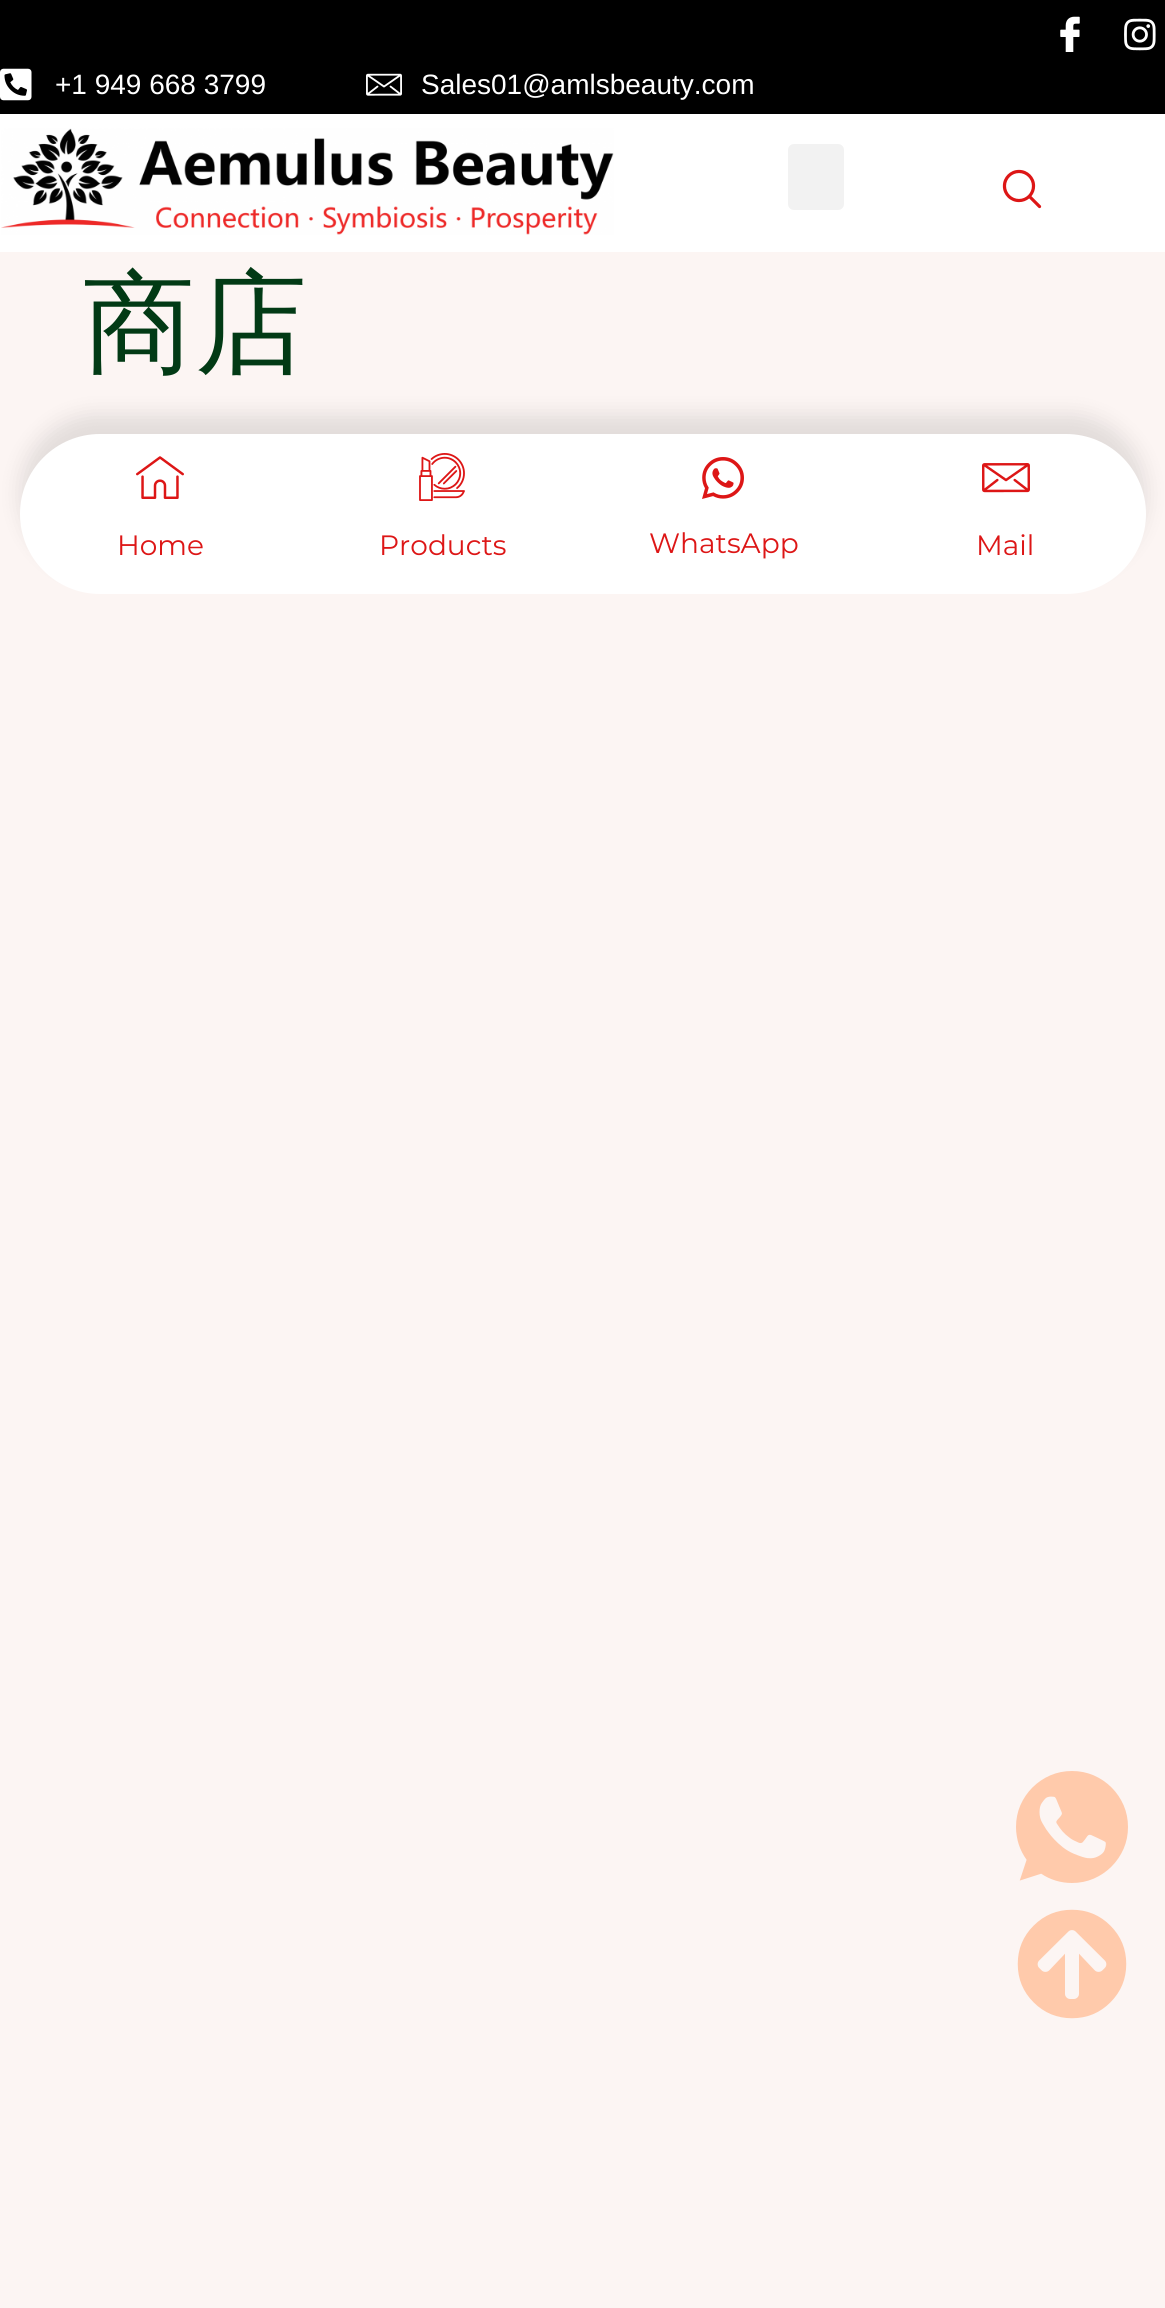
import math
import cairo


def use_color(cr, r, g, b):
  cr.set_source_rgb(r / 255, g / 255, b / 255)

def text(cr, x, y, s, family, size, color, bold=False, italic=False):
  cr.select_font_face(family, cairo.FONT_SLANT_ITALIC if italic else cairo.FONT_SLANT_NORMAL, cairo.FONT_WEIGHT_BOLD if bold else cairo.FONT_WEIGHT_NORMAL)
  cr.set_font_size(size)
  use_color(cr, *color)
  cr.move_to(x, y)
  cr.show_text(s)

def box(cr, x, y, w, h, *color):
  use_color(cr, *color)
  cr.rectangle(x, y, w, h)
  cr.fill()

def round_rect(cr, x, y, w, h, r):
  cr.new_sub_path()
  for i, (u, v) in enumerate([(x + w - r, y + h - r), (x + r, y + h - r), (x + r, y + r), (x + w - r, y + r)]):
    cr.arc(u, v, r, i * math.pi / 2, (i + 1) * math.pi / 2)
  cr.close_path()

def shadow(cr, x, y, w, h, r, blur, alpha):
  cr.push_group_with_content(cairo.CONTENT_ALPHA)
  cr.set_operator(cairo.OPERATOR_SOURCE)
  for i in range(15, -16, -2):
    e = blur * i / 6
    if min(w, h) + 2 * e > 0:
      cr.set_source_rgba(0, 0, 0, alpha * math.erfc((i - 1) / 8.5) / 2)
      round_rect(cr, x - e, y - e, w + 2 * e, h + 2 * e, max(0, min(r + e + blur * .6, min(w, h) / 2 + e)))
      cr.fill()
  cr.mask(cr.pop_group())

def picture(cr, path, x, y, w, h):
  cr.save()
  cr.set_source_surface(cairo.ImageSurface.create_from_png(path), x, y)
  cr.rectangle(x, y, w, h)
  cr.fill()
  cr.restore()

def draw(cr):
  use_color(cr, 252, 245, 243)
  cr.paint()
  box(cr, 0, 114, 1165, 138, 255, 255, 255)
  box(cr, 0, 0, 1165, 114, 0, 0, 0)
  picture(cr, "img_01.png", 1060, 16, 20, 36)
  picture(cr, "img_02.png", 1124, 18, 32, 33)
  picture(cr, "img_03.png", 0, 68, 32, 33)
  picture(cr, "img_04.png", 366, 73, 36, 23)
  picture(cr, "img_05.png", 1, 128, 613, 107)
  use_color(cr, 242, 242, 242)
  round_rect(cr, 788, 144, 56, 66, 6)
  cr.fill()
  picture(cr, "img_06.png", 1002, 169, 40, 40)
  use_color(cr, 0, 0, 0)
  shadow(cr, 20, 414, 1126, 160, 80, 10, 0.1)
  use_color(cr, 255, 255, 255)
  round_rect(cr, 20, 434, 1126, 160, 80)
  cr.fill()
  picture(cr, "img_07.png", 136, 456, 48, 43)
  picture(cr, "img_08.png", 419, 453, 46, 48)
  picture(cr, "img_09.png", 702, 457, 42, 42)
  picture(cr, "img_10.png", 982, 463, 48, 30)
  picture(cr, "img_11.png", 1016, 1771, 112, 112)
  picture(cr, "img_12.png", 1017, 1909, 110, 110)
  text(cr, 55, 94, "+1 949 668 3799", "Liberation Sans", 28, (255, 255, 255))
  text(cr, 421, 94, "Sales01@amlsbeauty.com", "Liberation Sans", 28, (255, 255, 255))
  text(cr, 83, 362, "商店", "WenQuanYi Zen Hei Medium", 112, (2, 58, 21))
  text(cr, 117, 555, "Home", "Montserrat", 28, (221, 22, 22))
  text(cr, 379, 555, "Products", "Montserrat", 28, (221, 22, 22))
  text(cr, 649, 553, "WhatsApp", "Montserrat", 28, (221, 22, 22))
  text(cr, 976, 555, "Mail", "Montserrat", 28, (221, 22, 22))


surface = cairo.ImageSurface(cairo.FORMAT_RGB24, 1165, 2308)
cr = cairo.Context(surface)
options = cairo.FontOptions()
options.set_hint_metrics(cairo.HINT_METRICS_OFF)
options.set_hint_style(cairo.HINT_STYLE_NONE)
cr.set_font_options(options)
cr.set_miter_limit(4)
draw(cr)
surface.write_to_png("out.png")
